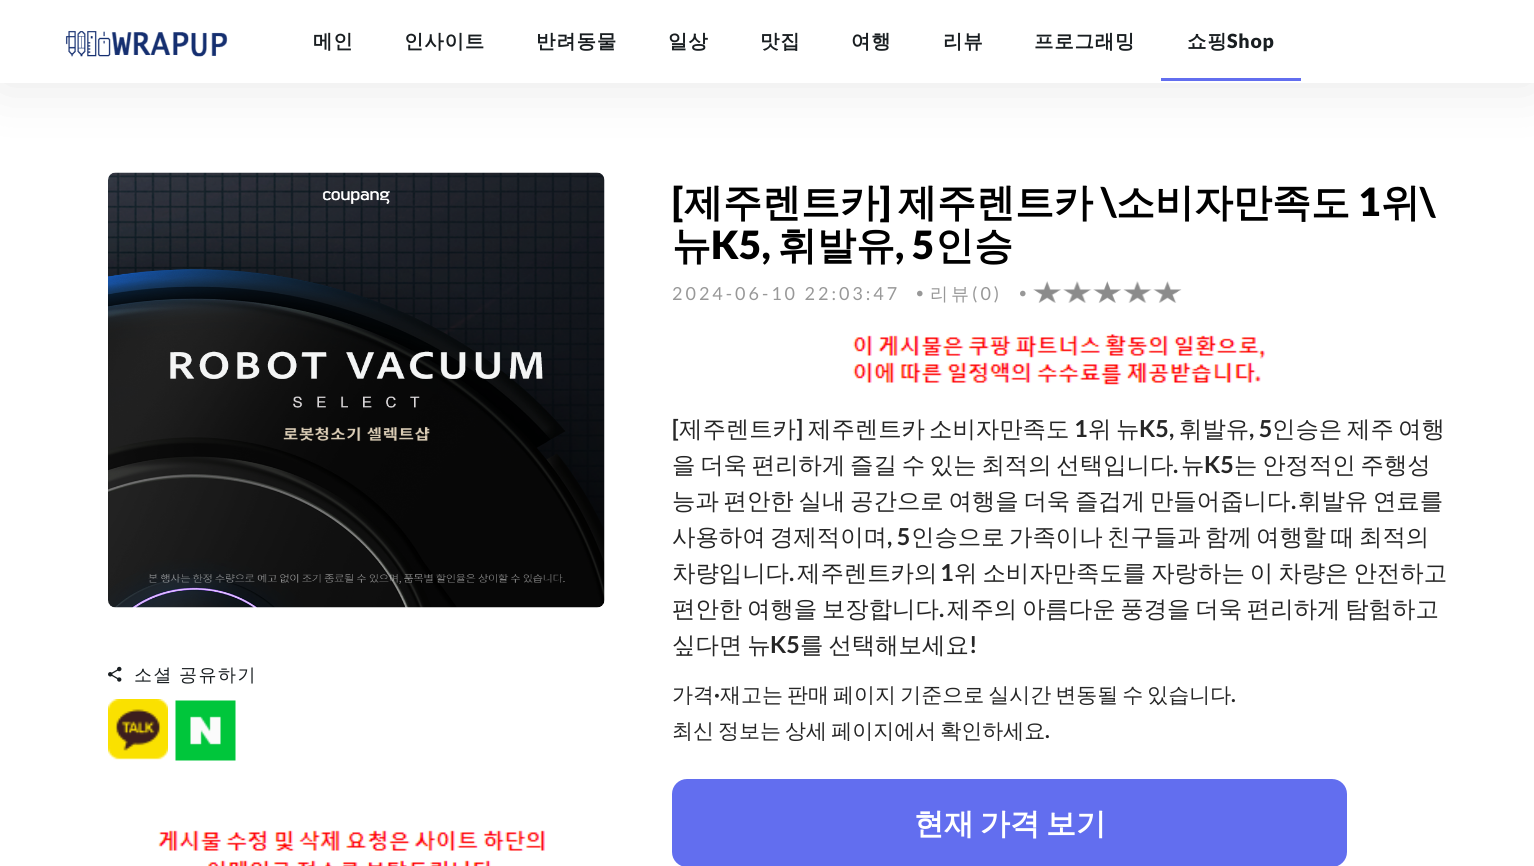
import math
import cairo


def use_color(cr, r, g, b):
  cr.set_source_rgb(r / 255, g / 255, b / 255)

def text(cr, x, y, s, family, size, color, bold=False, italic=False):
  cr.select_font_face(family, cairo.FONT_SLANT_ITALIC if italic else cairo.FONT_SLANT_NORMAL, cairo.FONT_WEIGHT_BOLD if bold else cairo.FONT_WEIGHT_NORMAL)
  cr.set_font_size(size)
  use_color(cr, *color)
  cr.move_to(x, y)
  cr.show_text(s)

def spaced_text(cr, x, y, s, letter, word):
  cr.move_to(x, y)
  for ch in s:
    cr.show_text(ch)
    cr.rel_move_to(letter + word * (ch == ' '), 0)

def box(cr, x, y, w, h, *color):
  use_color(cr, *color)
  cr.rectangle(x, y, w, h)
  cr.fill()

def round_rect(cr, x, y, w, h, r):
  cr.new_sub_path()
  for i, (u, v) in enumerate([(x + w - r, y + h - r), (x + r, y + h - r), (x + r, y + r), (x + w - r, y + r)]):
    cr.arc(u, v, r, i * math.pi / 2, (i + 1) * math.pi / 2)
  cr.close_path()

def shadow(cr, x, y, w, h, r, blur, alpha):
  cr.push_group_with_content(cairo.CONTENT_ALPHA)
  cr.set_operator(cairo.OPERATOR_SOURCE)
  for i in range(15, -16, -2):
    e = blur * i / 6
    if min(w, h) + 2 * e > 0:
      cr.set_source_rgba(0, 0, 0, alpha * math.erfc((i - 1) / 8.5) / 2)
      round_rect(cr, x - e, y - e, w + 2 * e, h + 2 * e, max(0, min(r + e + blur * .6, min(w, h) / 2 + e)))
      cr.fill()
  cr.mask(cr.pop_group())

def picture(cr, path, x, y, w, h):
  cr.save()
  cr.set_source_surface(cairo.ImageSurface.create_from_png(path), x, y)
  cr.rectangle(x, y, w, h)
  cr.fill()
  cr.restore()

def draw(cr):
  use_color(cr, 255, 255, 255)
  cr.paint()
  picture(cr, "img_02.png", 108, 172, 497, 436)
  use_color(cr, 0, 0, 0)
  shadow(cr, 0, 0, 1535, 83, 0, 30, 0.1)
  box(cr, 0, 0, 1534, 83, 255, 255, 255)
  picture(cr, "img_01.png", 65, 30, 163, 27)
  box(cr, 1161, 78, 140, 3, 98, 110, 239)
  picture(cr, "img_03.png", 108, 666, 14, 16)
  picture(cr, "img_04.png", 108, 699, 60, 61)
  picture(cr, "img_05.png", 175, 700, 61, 61)
  picture(cr, "img_06.png", 158, 830, 387, 36)
  picture(cr, "img_07.png", 1033, 281, 149, 22)
  picture(cr, "img_08.png", 853, 334, 412, 51)
  round_rect(cr, 673.5, 780.5, 672, 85, 13.5)
  cr.fill_preserve()
  cr.set_line_width(3)
  cr.stroke()
  cr.select_font_face("WenQuanYi Zen Hei", cairo.FONT_SLANT_NORMAL, cairo.FONT_WEIGHT_BOLD)
  cr.set_font_size(19.5)
  use_color(cr, 25, 30, 33)
  spaced_text(cr, 313, 48, "메인", 0.75, 0)
  spaced_text(cr, 404, 48, "인사이트", 0.75, 0)
  spaced_text(cr, 536, 48, "반려동물", 0.75, 0)
  spaced_text(cr, 668, 48, "일상", 0.75, 0)
  spaced_text(cr, 760, 48, "맛집", 0.75, 0)
  spaced_text(cr, 851, 48, "여행", 0.75, 0)
  spaced_text(cr, 943, 48, "리뷰", 0.75, 0)
  spaced_text(cr, 1034, 48, "프로그래밍", 0.75, 0)
  spaced_text(cr, 1187, 48, "쇼핑", 0.75, 0)
  cr.select_font_face("Lato Black")
  spaced_text(cr, 1227, 48, "Shop", 0.75, 0)
  cr.select_font_face("WenQuanYi Zen Hei Medium")
  cr.set_font_size(18)
  spaced_text(cr, 134, 681, "소셜 공유하기", 1.5, -1)
  text(cr, 672, 216, "[", "Lato Black", 39, (0, 0, 0))
  text(cr, 684, 216, "제주렌트카", "WenQuanYi Zen Hei", 39, (0, 0, 0), bold=True)
  text(cr, 879, 216, "]", "Lato Black", 39, (0, 0, 0))
  text(cr, 898, 216, "제주렌트카", "WenQuanYi Zen Hei", 39, (0, 0, 0), bold=True)
  text(cr, 1101, 216, "\\", "Lato Black", 39, (0, 0, 0))
  text(cr, 1116, 216, "소비자만족도", "WenQuanYi Zen Hei", 39, (0, 0, 0), bold=True)
  text(cr, 1358, 216, "1", "Lato Black", 39, (0, 0, 0))
  text(cr, 1381, 216, "위", "WenQuanYi Zen Hei", 39, (0, 0, 0), bold=True)
  text(cr, 1420, 216, "\\", "Lato Black", 39, (0, 0, 0))
  text(cr, 672, 259, "뉴", "WenQuanYi Zen Hei", 39, (0, 0, 0), bold=True)
  text(cr, 711, 259, "K5,", "Lato Black", 39, (0, 0, 0))
  text(cr, 778, 259, "휘발유", "WenQuanYi Zen Hei", 39, (0, 0, 0), bold=True)
  text(cr, 895, 259, ", 5", "Lato Black", 39, (0, 0, 0))
  text(cr, 935, 259, "인승", "WenQuanYi Zen Hei", 39, (0, 0, 0), bold=True)
  cr.select_font_face("Lato")
  cr.set_font_size(18)
  use_color(cr, 152, 152, 152)
  spaced_text(cr, 672, 300, "2024-06-10 22:03:47", 3, 0)
  cr.set_font_size(45)
  spaced_text(cr, 915, 296, ".", 3, 0)
  cr.select_font_face("WenQuanYi Zen Hei Medium")
  cr.set_font_size(18)
  spaced_text(cr, 930, 300, "리뷰", 3, 0)
  cr.select_font_face("Lato")
  spaced_text(cr, 972, 300, "(0)", 3, 0)
  cr.set_font_size(45)
  spaced_text(cr, 1018, 296, ".", 3, 0)
  text(cr, 672, 437, "[", "Lato", 23.4, (38, 38, 38), bold=True)
  text(cr, 679, 437, "제주렌트카", "WenQuanYi Zen Hei Medium", 23.4, (38, 38, 38))
  text(cr, 796, 437, "]", "Lato", 23.4, (38, 38, 38), bold=True)
  text(cr, 808, 437, "제주렌트카", "WenQuanYi Zen Hei Medium", 23.4, (38, 38, 38))
  text(cr, 929, 437, "소비자만족도", "WenQuanYi Zen Hei Medium", 23.4, (38, 38, 38))
  text(cr, 1074, 437, "1", "Lato", 23.4, (38, 38, 38), bold=True)
  text(cr, 1088, 437, "위", "WenQuanYi Zen Hei Medium", 23.4, (38, 38, 38))
  text(cr, 1116, 437, "뉴", "WenQuanYi Zen Hei Medium", 23.4, (38, 38, 38))
  text(cr, 1139, 437, "K5,", "Lato", 23.4, (38, 38, 38), bold=True)
  text(cr, 1179, 437, "휘발유", "WenQuanYi Zen Hei Medium", 23.4, (38, 38, 38))
  text(cr, 1249, 437, ", 5", "Lato", 23.4, (38, 38, 38), bold=True)
  text(cr, 1272, 437, "인승은", "WenQuanYi Zen Hei Medium", 23.4, (38, 38, 38))
  text(cr, 1347, 437, "제주", "WenQuanYi Zen Hei Medium", 23.4, (38, 38, 38))
  text(cr, 1398, 437, "여행", "WenQuanYi Zen Hei Medium", 23.4, (38, 38, 38))
  spaced_text(cr, 672, 473, "을 더욱 편리하게 즐길 수 있는 최적의 선택입니다", 0, -2.25)
  text(cr, 1173, 473, ".", "Lato", 23.4, (38, 38, 38), bold=True)
  text(cr, 1181, 473, "뉴", "WenQuanYi Zen Hei Medium", 23.4, (38, 38, 38))
  text(cr, 1204, 473, "K5", "Lato", 23.4, (38, 38, 38), bold=True)
  cr.select_font_face("WenQuanYi Zen Hei Medium")
  spaced_text(cr, 1234, 473, "는 안정적인 주행성", 0, -2.25)
  spaced_text(cr, 672, 509, "능과 편안한 실내 공간으로 여행을 더욱 즐겁게 만들어줍니다", 0, -2.25)
  text(cr, 1291, 509, ".", "Lato", 23.4, (38, 38, 38), bold=True)
  cr.select_font_face("WenQuanYi Zen Hei Medium")
  spaced_text(cr, 1298, 509, "휘발유 연료를", 0, -2.25)
  text(cr, 672, 545, "사용하여", "WenQuanYi Zen Hei Medium", 23.4, (38, 38, 38))
  text(cr, 770, 545, "경제적이며", "WenQuanYi Zen Hei Medium", 23.4, (38, 38, 38))
  text(cr, 887, 545, ", 5", "Lato", 23.4, (38, 38, 38), bold=True)
  text(cr, 911, 545, "인승으로", "WenQuanYi Zen Hei Medium", 23.4, (38, 38, 38))
  text(cr, 1009, 545, "가족이나", "WenQuanYi Zen Hei Medium", 23.4, (38, 38, 38))
  text(cr, 1107, 545, "친구들과", "WenQuanYi Zen Hei Medium", 23.4, (38, 38, 38))
  text(cr, 1205, 545, "함께", "WenQuanYi Zen Hei Medium", 23.4, (38, 38, 38))
  text(cr, 1256, 545, "여행할", "WenQuanYi Zen Hei Medium", 23.4, (38, 38, 38))
  text(cr, 1331, 545, "때", "WenQuanYi Zen Hei Medium", 23.4, (38, 38, 38))
  text(cr, 1359, 545, "최적의", "WenQuanYi Zen Hei Medium", 23.4, (38, 38, 38))
  text(cr, 672, 581, "차량입니다", "WenQuanYi Zen Hei Medium", 23.4, (38, 38, 38))
  text(cr, 789, 581, ".", "Lato", 23.4, (38, 38, 38), bold=True)
  text(cr, 797, 581, "제주렌트카의", "WenQuanYi Zen Hei Medium", 23.4, (38, 38, 38))
  text(cr, 940, 581, "1", "Lato", 23.4, (38, 38, 38), bold=True)
  cr.select_font_face("WenQuanYi Zen Hei Medium")
  spaced_text(cr, 954, 581, "위 소비자만족도를 자랑하는 이 차량은 안전하고", 0, -2)
  spaced_text(cr, 672, 617, "편안한 여행을 보장합니다", 0, -2.25)
  text(cr, 939, 617, ".", "Lato", 23.4, (38, 38, 38), bold=True)
  cr.select_font_face("WenQuanYi Zen Hei Medium")
  spaced_text(cr, 947, 617, "제주의 아름다운 풍경을 더욱 편리하게 탐험하고", 0, -2.25)
  spaced_text(cr, 672, 653, "싶다면 뉴", 0, -2)
  text(cr, 770, 653, "K5", "Lato", 23.4, (38, 38, 38), bold=True)
  cr.select_font_face("WenQuanYi Zen Hei Medium")
  spaced_text(cr, 800, 653, "를 선택해보세요", 0, -2)
  text(cr, 969, 653, "!", "Lato", 23.4, (38, 38, 38), bold=True)
  text(cr, 672, 702, "가격", "WenQuanYi Zen Hei Medium", 21, (38, 38, 38))
  text(cr, 714, 702, "·", "Lato", 21, (38, 38, 38), bold=True)
  cr.select_font_face("WenQuanYi Zen Hei Medium")
  spaced_text(cr, 720, 702, "재고는 판매 페이지 기준으로 실시간 변동될 수 있습니다", 0, -2.25)
  text(cr, 1231, 702, ".", "Lato", 21, (38, 38, 38), bold=True)
  cr.select_font_face("WenQuanYi Zen Hei Medium")
  spaced_text(cr, 672, 738, "최신 정보는 상세 페이지에서 확인하세요", 0, -2.25)
  text(cr, 1045, 738, ".", "Lato", 21, (38, 38, 38), bold=True)
  cr.select_font_face("WenQuanYi Zen Hei", cairo.FONT_SLANT_NORMAL, cairo.FONT_WEIGHT_BOLD)
  cr.set_font_size(30)
  use_color(cr, 255, 255, 255)
  spaced_text(cr, 914, 834, "현재 가격 보기", 0, -3)


surface = cairo.ImageSurface(cairo.FORMAT_RGB24, 1534, 866)
cr = cairo.Context(surface)
options = cairo.FontOptions()
options.set_hint_metrics(cairo.HINT_METRICS_OFF)
options.set_hint_style(cairo.HINT_STYLE_NONE)
cr.set_font_options(options)
cr.set_miter_limit(4)
draw(cr)
surface.write_to_png("out.png")
